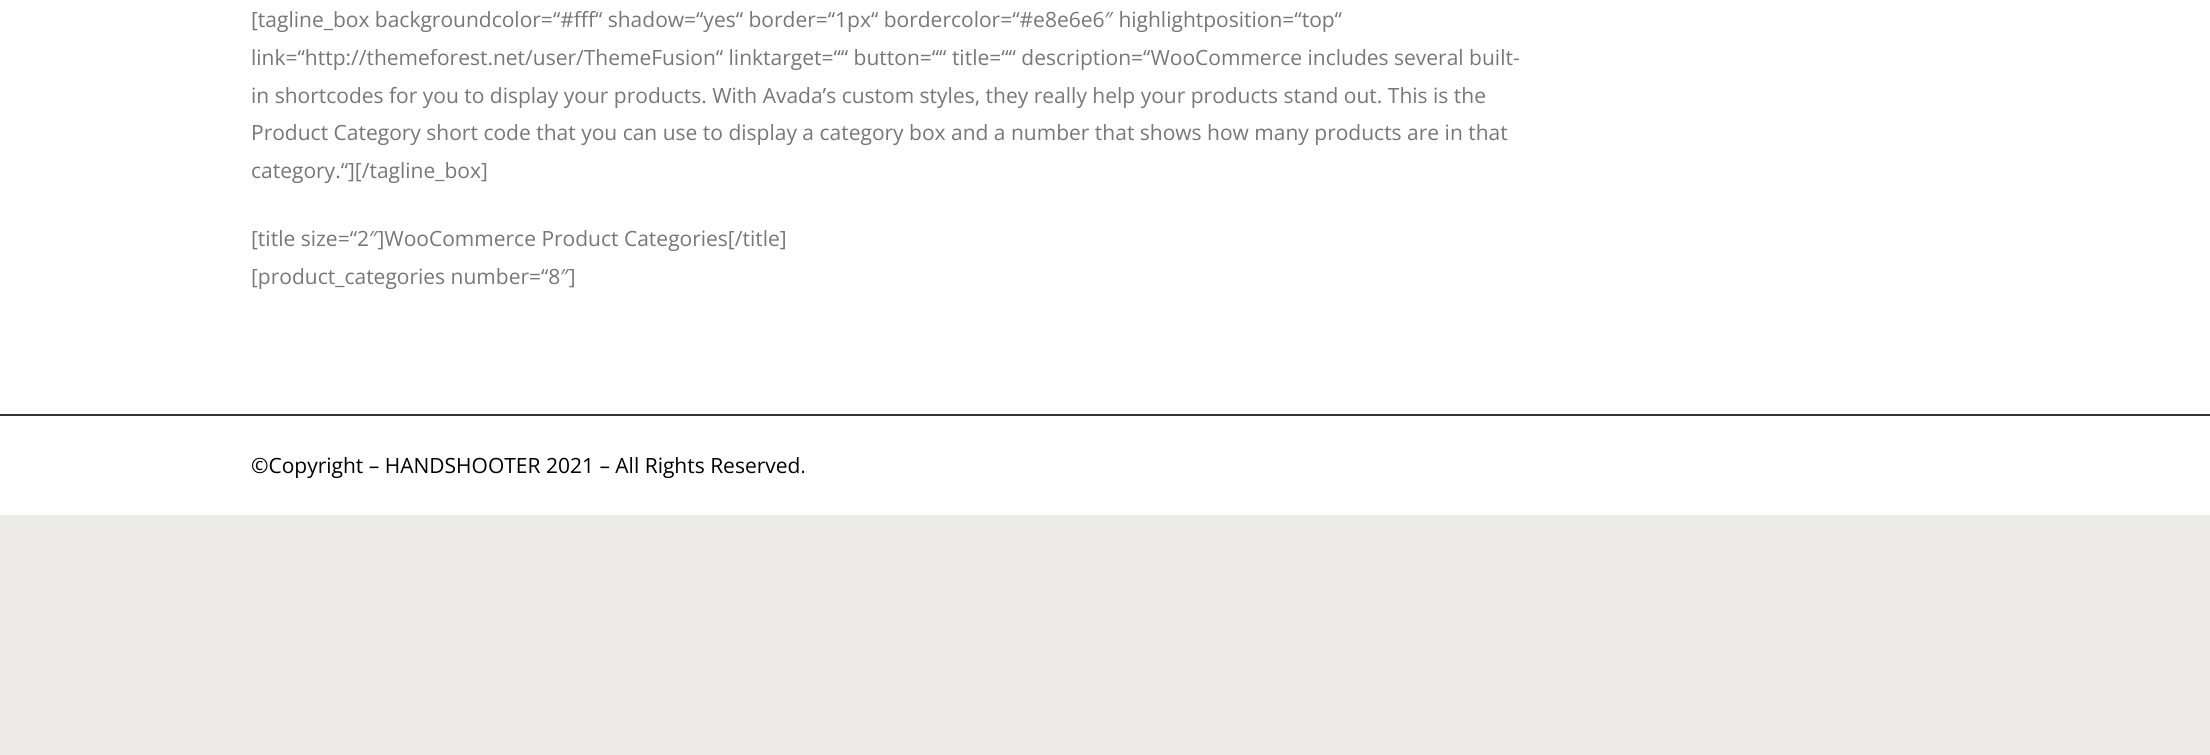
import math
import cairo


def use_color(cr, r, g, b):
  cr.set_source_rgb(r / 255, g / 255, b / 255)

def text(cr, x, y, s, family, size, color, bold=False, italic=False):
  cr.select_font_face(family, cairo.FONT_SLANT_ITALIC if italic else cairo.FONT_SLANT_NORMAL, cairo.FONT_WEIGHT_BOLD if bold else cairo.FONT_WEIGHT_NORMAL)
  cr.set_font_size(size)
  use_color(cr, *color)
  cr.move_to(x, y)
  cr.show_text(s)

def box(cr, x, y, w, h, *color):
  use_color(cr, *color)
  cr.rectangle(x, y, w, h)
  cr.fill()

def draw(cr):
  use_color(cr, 236, 235, 233)
  cr.paint()
  box(cr, 0, 0, 2210, 414, 255, 255, 255)
  box(cr, 0, 416, 2210, 99, 255, 255, 255)
  box(cr, 0, 414, 2210, 2, 51, 51, 51)
  text(cr, 251, 27, "[tagline_box backgroundcolor=“#fff“ shadow=“yes“ border=“1px“ bordercolor=“#e8e6e6″ highlightposition=“top“", "Open Sans", 21, (119, 119, 119))
  text(cr, 251, 65, "link=“http://themeforest.net/user/ThemeFusion“ linktarget=““ button=““ title=““ description=“WooCommerce includes several built-", "Open Sans", 21, (119, 119, 119))
  text(cr, 251, 103, "in shortcodes for you to display your products. With Avada’s custom styles, they really help your products stand out. This is the", "Open Sans", 21, (119, 119, 119))
  text(cr, 251, 140, "Product Category short code that you can use to display a category box and a number that shows how many products are in that", "Open Sans", 21, (119, 119, 119))
  text(cr, 251, 178, "category.“][/tagline_box]", "Open Sans", 21, (119, 119, 119))
  text(cr, 251, 246, "[title size=“2″]WooCommerce Product Categories[/title]", "Open Sans", 21, (119, 119, 119))
  text(cr, 251, 284, "[product_categories number=“8″]", "Open Sans", 21, (119, 119, 119))
  text(cr, 251, 473, "©Copyright – HANDSHOOTER 2021 – All Rights Reserved.", "Open Sans", 21, (0, 0, 0))


surface = cairo.ImageSurface(cairo.FORMAT_RGB24, 2210, 755)
cr = cairo.Context(surface)
options = cairo.FontOptions()
options.set_hint_metrics(cairo.HINT_METRICS_OFF)
options.set_hint_style(cairo.HINT_STYLE_NONE)
cr.set_font_options(options)
cr.set_miter_limit(4)
draw(cr)
surface.write_to_png("out.png")
